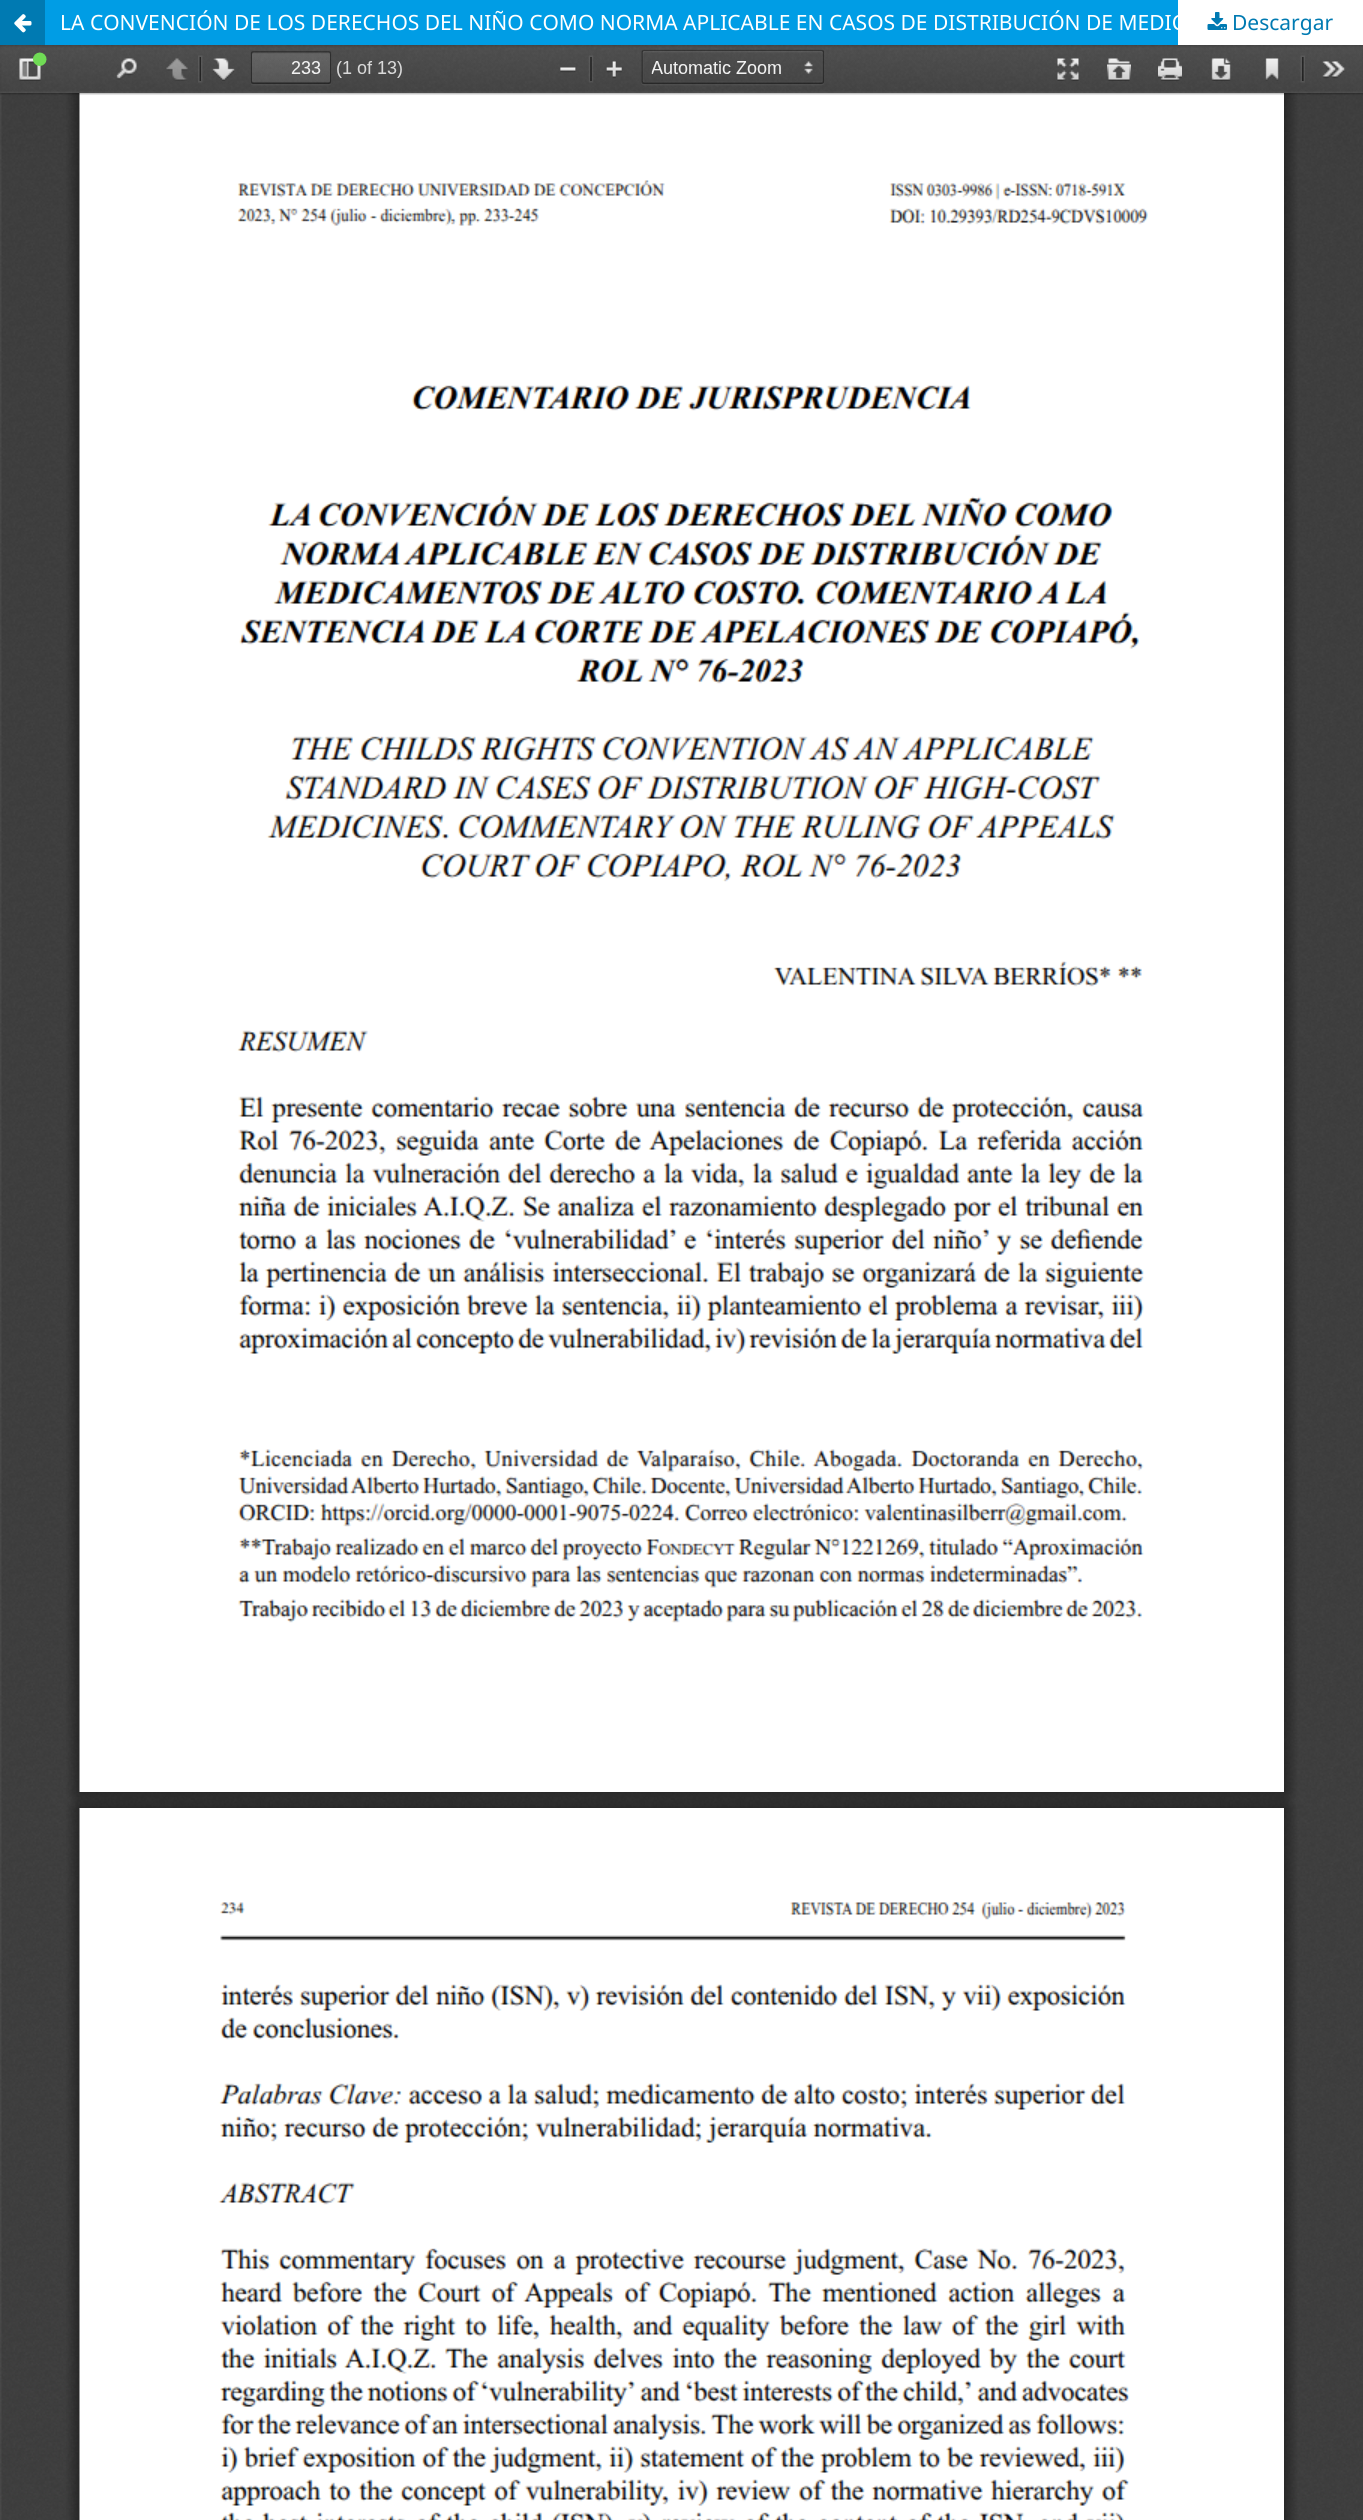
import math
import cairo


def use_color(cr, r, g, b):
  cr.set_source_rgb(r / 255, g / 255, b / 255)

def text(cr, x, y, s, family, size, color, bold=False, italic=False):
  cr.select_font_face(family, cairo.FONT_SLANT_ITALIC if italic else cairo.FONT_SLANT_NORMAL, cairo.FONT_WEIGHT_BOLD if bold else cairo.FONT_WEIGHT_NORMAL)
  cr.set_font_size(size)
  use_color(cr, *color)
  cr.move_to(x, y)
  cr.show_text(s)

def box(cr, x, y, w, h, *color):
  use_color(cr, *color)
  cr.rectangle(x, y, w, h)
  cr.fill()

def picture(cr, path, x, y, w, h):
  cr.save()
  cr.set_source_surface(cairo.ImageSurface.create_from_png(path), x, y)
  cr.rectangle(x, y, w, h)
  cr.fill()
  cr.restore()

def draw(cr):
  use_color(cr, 255, 255, 255)
  cr.paint()
  box(cr, 45, 0, 1133, 45, 0, 157, 229)
  box(cr, 0, 0, 45, 45, 0, 122, 178)
  picture(cr, "img_01.png", 14, 14, 18, 19)
  picture(cr, "img_02.png", 1207, 12, 20, 18)
  picture(cr, "img_03.png", 0, 45, 1363, 2475)
  text(cr, 60, 30, "LA CONVENCIÓN DE LOS DERECHOS DEL NIÑO COMO NORMA APLICABLE EN CASOS DE DISTRIBUCIÓN DE MEDIC", "Noto Sans", 21, (255, 255, 255))
  text(cr, 1232, 30, "Descargar", "Noto Sans", 21, (0, 122, 178))


surface = cairo.ImageSurface(cairo.FORMAT_RGB24, 1363, 2520)
cr = cairo.Context(surface)
options = cairo.FontOptions()
options.set_hint_metrics(cairo.HINT_METRICS_OFF)
options.set_hint_style(cairo.HINT_STYLE_NONE)
cr.set_font_options(options)
cr.set_miter_limit(4)
draw(cr)
surface.write_to_png("out.png")
